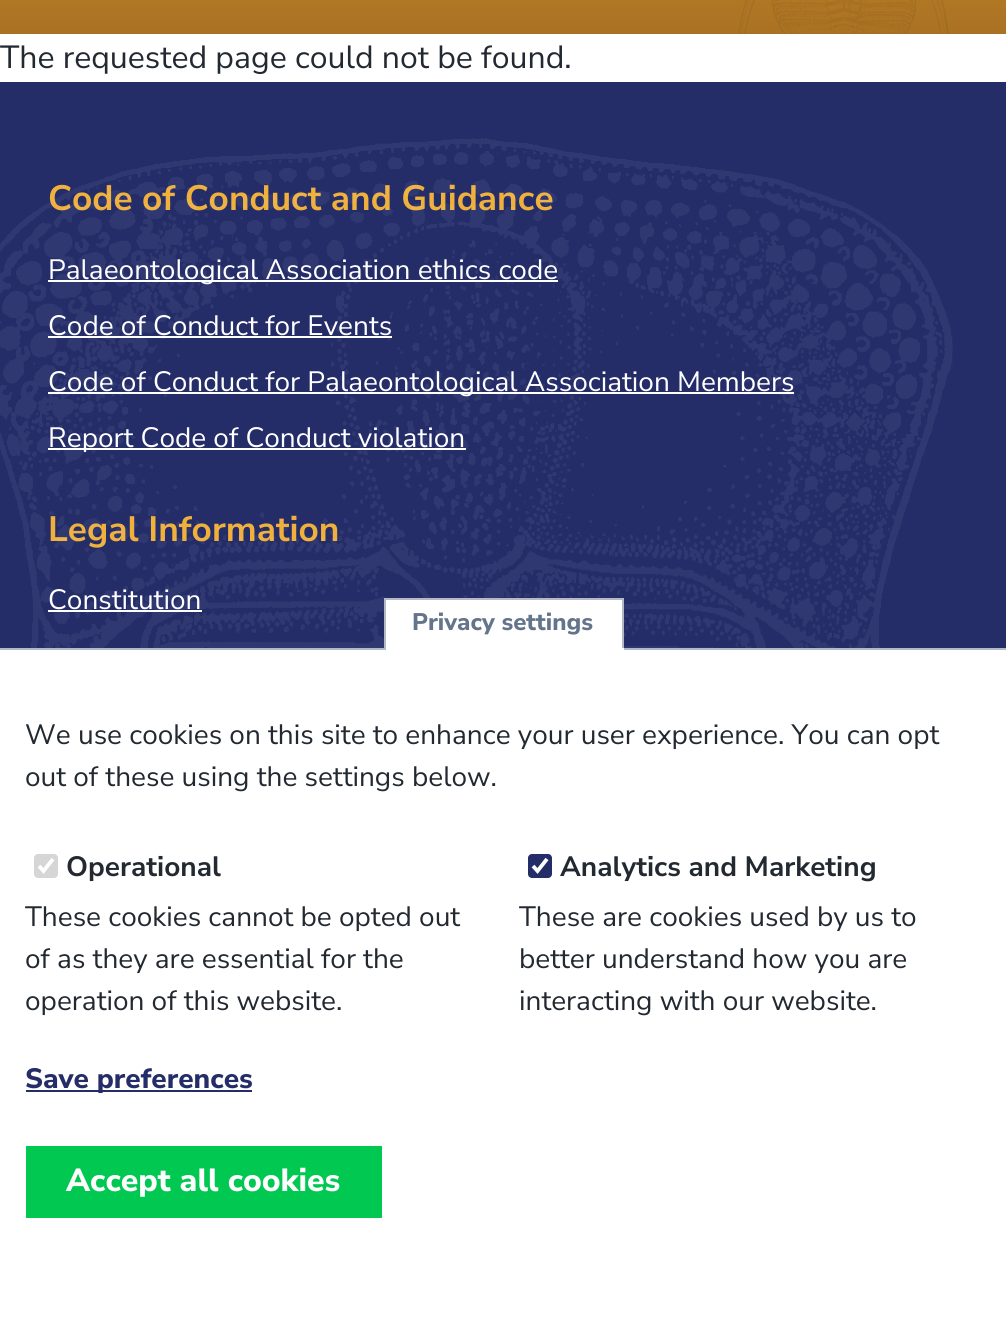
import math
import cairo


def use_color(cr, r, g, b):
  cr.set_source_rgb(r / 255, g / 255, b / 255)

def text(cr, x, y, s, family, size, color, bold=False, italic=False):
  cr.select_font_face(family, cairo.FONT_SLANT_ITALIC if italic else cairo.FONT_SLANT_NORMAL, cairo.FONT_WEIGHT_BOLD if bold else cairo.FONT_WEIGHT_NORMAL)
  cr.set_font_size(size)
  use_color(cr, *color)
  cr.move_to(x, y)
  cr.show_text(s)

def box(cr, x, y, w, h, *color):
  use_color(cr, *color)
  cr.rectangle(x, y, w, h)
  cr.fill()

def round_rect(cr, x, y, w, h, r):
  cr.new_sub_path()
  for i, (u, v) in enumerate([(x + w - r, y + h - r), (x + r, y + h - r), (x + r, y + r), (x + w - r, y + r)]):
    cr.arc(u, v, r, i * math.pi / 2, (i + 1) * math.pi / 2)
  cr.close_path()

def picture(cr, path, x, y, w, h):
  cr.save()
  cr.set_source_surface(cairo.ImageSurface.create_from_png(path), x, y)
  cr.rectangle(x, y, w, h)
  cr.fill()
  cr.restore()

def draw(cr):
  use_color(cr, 255, 255, 255)
  cr.paint()
  gradient = cairo.LinearGradient(503, -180, 503, 34)
  gradient.add_color_stop_rgba(0, 0.937, 0.69, 0.235, 1)
  gradient.add_color_stop_rgba(0.4, 0.769, 0.518, 0.161, 1)
  gradient.add_color_stop_rgba(1, 0.663, 0.447, 0.137, 1)
  cr.set_source(gradient)
  cr.rectangle(0, 0, 1006, 34)
  cr.fill()
  picture(cr, "img_01.png", 738, 0, 211, 34)
  box(cr, 0, 82, 1006, 566, 37, 45, 105)
  box(cr, 48, 280, 510, 2, 255, 255, 255)
  box(cr, 48, 336, 344, 2, 255, 255, 255)
  box(cr, 48, 392, 746, 2, 255, 255, 255)
  box(cr, 48, 448, 418, 2, 255, 255, 255)
  box(cr, 48, 610, 154, 2, 255, 255, 255)
  box(cr, 0, 648, 1006, 2, 178, 186, 197)
  use_color(cr, 214, 214, 214)
  round_rect(cr, 34, 854, 24, 24, 4)
  cr.fill()
  cr.new_path()
  cr.move_to(39, 866)
  cr.line_to(43.5, 871)
  cr.line_to(53, 859)
  use_color(cr, 255, 255, 255)
  cr.set_line_width(3.8)
  cr.stroke()
  use_color(cr, 37, 45, 105)
  round_rect(cr, 528, 854, 24, 24, 4)
  cr.fill()
  cr.new_path()
  cr.move_to(533, 866)
  cr.line_to(537.5, 871)
  cr.line_to(547, 859)
  use_color(cr, 255, 255, 255)
  cr.stroke()
  box(cr, 26, 1090, 226, 2, 37, 45, 105)
  box(cr, 26, 1146, 356, 72, 0, 200, 81)
  text(cr, 0, 68, "The requested page could not be found.", "Nunito Sans ExtraLight", 32, (35, 41, 49))
  text(cr, 48, 210, "Code of Conduct and Guidance", "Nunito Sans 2 ExtraLight", 35.25, (239, 176, 60))
  text(cr, 48, 279, "Palaeontological Association ethics code", "Nunito Sans ExtraLight", 28, (255, 255, 255))
  text(cr, 48, 335, "Code of Conduct for Events", "Nunito Sans ExtraLight", 28, (255, 255, 255))
  text(cr, 48, 391, "Code of Conduct for Palaeontological Association Members", "Nunito Sans ExtraLight", 28, (255, 255, 255))
  text(cr, 48, 447, "Report Code of Conduct violation", "Nunito Sans ExtraLight", 28, (255, 255, 255))
  text(cr, 48, 541, "Legal Information", "Nunito Sans 2 ExtraLight", 35.25, (239, 176, 60))
  text(cr, 48, 609, "Constitution", "Nunito Sans ExtraLight", 28, (255, 255, 255))
  picture(cr, "img_02.png", 0, 138, 953, 510)
  box(cr, 386, 600, 236, 48, 255, 255, 255)
  box(cr, 384, 598, 240, 2, 178, 186, 197)
  box(cr, 622, 598, 2, 52, 178, 186, 197)
  box(cr, 384, 648, 240, 2, 255, 255, 255)
  box(cr, 384, 598, 2, 52, 178, 186, 197)
  text(cr, 412, 630, "Privacy settings", "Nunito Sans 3 ExtraLight", 24, (100, 116, 139))
  text(cr, 25, 744, "We use cookies on this site to enhance your user experience. You can opt", "Nunito Sans ExtraLight", 28, (35, 41, 49))
  text(cr, 25, 786, "out of these using the settings below.", "Nunito Sans ExtraLight", 28, (35, 41, 49))
  text(cr, 66, 876, "Operational", "Nunito Sans 2 ExtraLight", 28, (35, 41, 49))
  text(cr, 25, 926, "These cookies cannot be opted out", "Nunito Sans ExtraLight", 28, (35, 41, 49))
  text(cr, 25, 968, "of as they are essential for the", "Nunito Sans ExtraLight", 28, (35, 41, 49))
  text(cr, 25, 1010, "operation of this website.", "Nunito Sans ExtraLight", 28, (35, 41, 49))
  text(cr, 560, 876, "Analytics and Marketing", "Nunito Sans 2 ExtraLight", 28, (35, 41, 49))
  text(cr, 519, 926, "These are cookies used by us to", "Nunito Sans ExtraLight", 28, (35, 41, 49))
  text(cr, 519, 968, "better understand how you are", "Nunito Sans ExtraLight", 28, (35, 41, 49))
  text(cr, 519, 1010, "interacting with our website.", "Nunito Sans ExtraLight", 28, (35, 41, 49))
  text(cr, 25, 1088, "Save preferences", "Nunito Sans 3 ExtraLight", 28, (37, 45, 105))
  text(cr, 66, 1191, "Accept all cookies", "Nunito Sans 3 ExtraLight", 32, (255, 255, 255))


surface = cairo.ImageSurface(cairo.FORMAT_RGB24, 1006, 1329)
cr = cairo.Context(surface)
options = cairo.FontOptions()
options.set_hint_metrics(cairo.HINT_METRICS_OFF)
options.set_hint_style(cairo.HINT_STYLE_NONE)
cr.set_font_options(options)
cr.set_miter_limit(4)
draw(cr)
surface.write_to_png("out.png")
